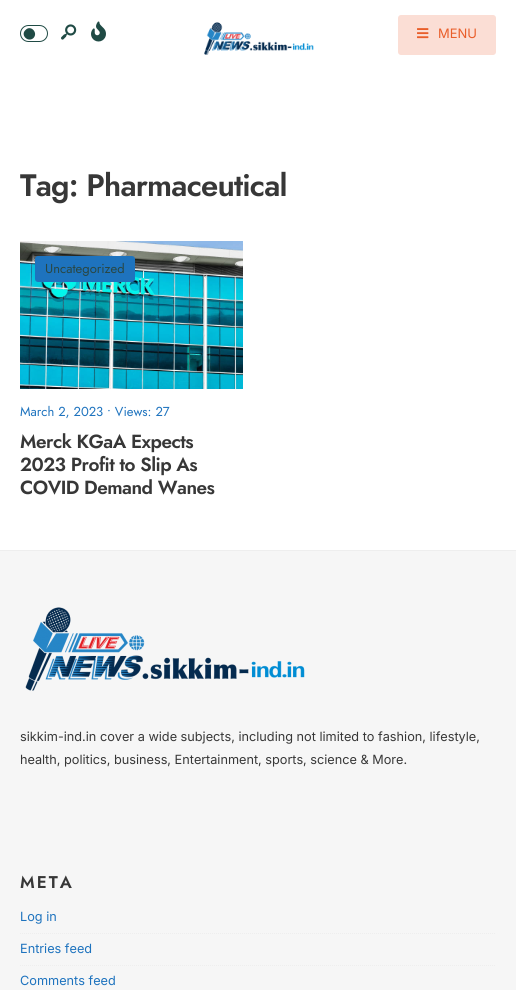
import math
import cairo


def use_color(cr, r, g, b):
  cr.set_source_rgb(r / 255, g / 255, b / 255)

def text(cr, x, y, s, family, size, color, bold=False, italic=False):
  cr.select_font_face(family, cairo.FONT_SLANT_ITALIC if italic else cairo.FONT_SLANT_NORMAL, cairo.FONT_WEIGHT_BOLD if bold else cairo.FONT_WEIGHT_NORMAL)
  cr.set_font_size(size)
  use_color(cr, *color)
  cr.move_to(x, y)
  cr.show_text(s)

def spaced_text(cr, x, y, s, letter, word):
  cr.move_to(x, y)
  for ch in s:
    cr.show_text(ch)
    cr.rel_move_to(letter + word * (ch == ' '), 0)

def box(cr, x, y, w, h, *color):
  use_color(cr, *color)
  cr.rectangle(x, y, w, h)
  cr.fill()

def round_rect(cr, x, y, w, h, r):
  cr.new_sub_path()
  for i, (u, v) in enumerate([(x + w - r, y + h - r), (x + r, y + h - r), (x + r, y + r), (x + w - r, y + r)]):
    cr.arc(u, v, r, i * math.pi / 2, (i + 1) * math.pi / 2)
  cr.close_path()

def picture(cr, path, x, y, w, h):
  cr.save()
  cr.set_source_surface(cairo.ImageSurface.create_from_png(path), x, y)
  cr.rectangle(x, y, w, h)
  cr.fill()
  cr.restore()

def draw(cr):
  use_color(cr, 255, 255, 255)
  cr.paint()
  round_rect(cr, 20.5, 25.5, 27, 16, 8)
  use_color(cr, 32, 75, 69)
  cr.set_line_width(1)
  cr.stroke()
  cr.new_path()
  cr.move_to(25.5, 30)
  cr.curve_to(30.5, 24.5, 38.5, 32.5, 33.5, 38)
  cr.curve_to(28, 43, 20, 35, 25.5, 30)
  cr.close_path()
  cr.fill()
  picture(cr, "img_01.png", 61, 24, 16, 16)
  picture(cr, "img_02.png", 91, 21, 15, 21)
  picture(cr, "img_03.png", 204, 22, 110, 33)
  use_color(cr, 251, 222, 213)
  round_rect(cr, 398, 15, 98, 40, 3)
  cr.fill()
  picture(cr, "img_04.png", 417, 28, 12, 11)
  picture(cr, "img_05.png", 20, 241, 223, 148)
  use_color(cr, 30, 115, 190)
  round_rect(cr, 35, 256, 100, 26, 3)
  cr.fill()
  box(cr, 0, 551, 516, 439, 246, 246, 246)
  box(cr, 0, 550, 516, 1, 238, 238, 238)
  picture(cr, "img_06.png", 25, 607, 280, 84)
  cr.new_path()
  cr.move_to(20, 933.5)
  cr.line_to(496, 933.5)
  cr.set_dash([1, 1])
  cr.stroke()
  cr.new_path()
  cr.move_to(20, 965.5)
  cr.line_to(496, 965.5)
  cr.stroke()
  text(cr, 438, 38, "MENU", "Inter", 13, (233, 94, 42))
  cr.select_font_face("Jost SemiBold")
  cr.set_font_size(31)
  use_color(cr, 55, 55, 55)
  spaced_text(cr, 20, 196, "Tag: Pharmaceutical", -0.8, 0)
  text(cr, 45, 273, "Uncategorized", "Jost", 13, (41, 71, 67))
  text(cr, 20, 416, "March 2, 2023 • Views: 27", "Jost", 13, (30, 115, 190))
  cr.select_font_face("Jost SemiBold")
  cr.set_font_size(19)
  use_color(cr, 55, 55, 55)
  spaced_text(cr, 20, 448, "Merck KGaA Expects", -0.5, 0)
  spaced_text(cr, 20, 471, "2023 Profit to Slip As", -0.5, 0)
  spaced_text(cr, 20, 494, "COVID Demand Wanes", -0.5, 0)
  text(cr, 20, 741, "sikkim-ind.in cover a wide subjects, including not limited to fashion, lifestyle,", "Inter", 12.7, (55, 55, 55))
  text(cr, 20, 764, "health, politics, business, Entertainment, sports, science & More.", "Inter", 12.7, (55, 55, 55))
  cr.select_font_face("Jost SemiBold")
  cr.set_font_size(17)
  spaced_text(cr, 20, 888, "META", 2, 0)
  text(cr, 20, 921, "Log in", "Inter", 12.7, (30, 115, 190))
  text(cr, 20, 953, "Entries feed", "Inter", 12.7, (30, 115, 190))
  text(cr, 20, 985, "Comments feed", "Inter", 12.7, (30, 115, 190))


surface = cairo.ImageSurface(cairo.FORMAT_RGB24, 516, 990)
cr = cairo.Context(surface)
options = cairo.FontOptions()
options.set_hint_metrics(cairo.HINT_METRICS_OFF)
options.set_hint_style(cairo.HINT_STYLE_NONE)
cr.set_font_options(options)
cr.set_miter_limit(4)
draw(cr)
surface.write_to_png("out.png")
